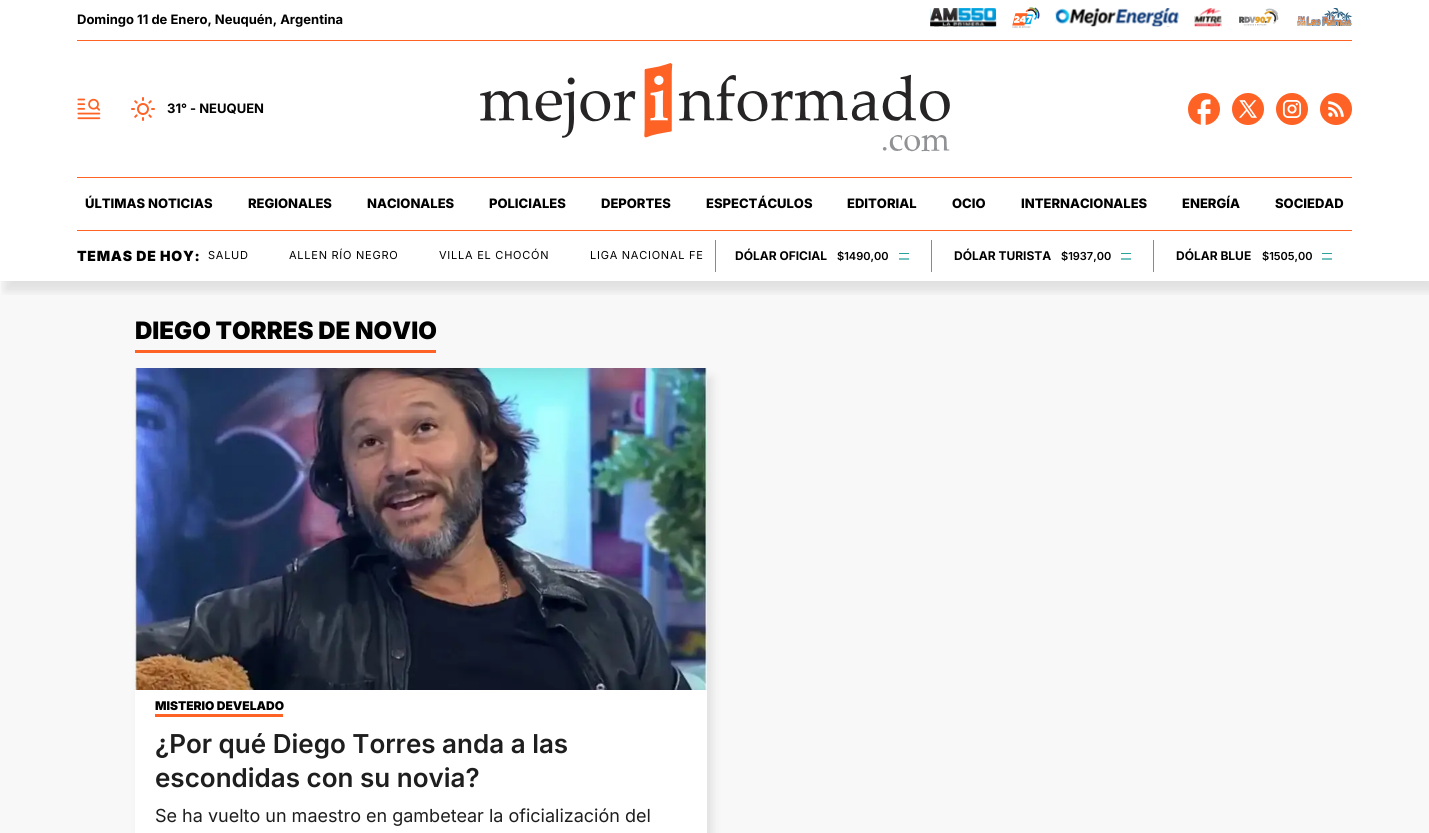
import math
import cairo


def use_color(cr, r, g, b):
  cr.set_source_rgb(r / 255, g / 255, b / 255)

def text(cr, x, y, s, family, size, color, bold=False, italic=False):
  cr.select_font_face(family, cairo.FONT_SLANT_ITALIC if italic else cairo.FONT_SLANT_NORMAL, cairo.FONT_WEIGHT_BOLD if bold else cairo.FONT_WEIGHT_NORMAL)
  cr.set_font_size(size)
  use_color(cr, *color)
  cr.move_to(x, y)
  cr.show_text(s)

def spaced_text(cr, x, y, s, letter, word):
  cr.move_to(x, y)
  for ch in s:
    cr.show_text(ch)
    cr.rel_move_to(letter + word * (ch == ' '), 0)

def box(cr, x, y, w, h, *color):
  use_color(cr, *color)
  cr.rectangle(x, y, w, h)
  cr.fill()

def round_rect(cr, x, y, w, h, r):
  cr.new_sub_path()
  for i, (u, v) in enumerate([(x + w - r, y + h - r), (x + r, y + h - r), (x + r, y + r), (x + w - r, y + r)]):
    cr.arc(u, v, r, i * math.pi / 2, (i + 1) * math.pi / 2)
  cr.close_path()

def shadow(cr, x, y, w, h, r, blur, alpha):
  cr.push_group_with_content(cairo.CONTENT_ALPHA)
  cr.set_operator(cairo.OPERATOR_SOURCE)
  for i in range(15, -16, -2):
    e = blur * i / 6
    if min(w, h) + 2 * e > 0:
      cr.set_source_rgba(0, 0, 0, alpha * math.erfc((i - 1) / 8.5) / 2)
      round_rect(cr, x - e, y - e, w + 2 * e, h + 2 * e, max(0, min(r + e + blur * .6, min(w, h) / 2 + e)))
      cr.fill()
  cr.mask(cr.pop_group())

def picture(cr, path, x, y, w, h):
  cr.save()
  cr.set_source_surface(cairo.ImageSurface.create_from_png(path), x, y)
  cr.rectangle(x, y, w, h)
  cr.fill()
  cr.restore()

def draw(cr):
  use_color(cr, 255, 255, 255)
  cr.paint()
  box(cr, 77, 40, 1275, 1, 255, 98, 37)
  picture(cr, "img_01.png", 930, 8, 67, 19)
  picture(cr, "img_02.png", 1012, 7, 28, 21)
  picture(cr, "img_03.png", 1055, 8, 124, 19)
  picture(cr, "img_04.png", 1194, 8, 28, 19)
  picture(cr, "img_05.png", 1239, 8, 40, 18)
  picture(cr, "img_06.png", 1297, 8, 55, 18)
  picture(cr, "img_07.png", 77, 98, 24, 22)
  picture(cr, "img_08.png", 131, 97, 24, 24)
  picture(cr, "img_09.png", 480, 63, 470, 89)
  picture(cr, "img_10.png", 1188, 93, 32, 32)
  picture(cr, "img_11.png", 1232, 93, 32, 32)
  picture(cr, "img_12.png", 1276, 93, 32, 32)
  picture(cr, "img_13.png", 1320, 93, 32, 32)
  box(cr, 0, 281, 1429, 552, 248, 248, 248)
  cr.save()
  cr.rectangle(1, 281, 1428, 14)
  cr.clip()
  use_color(cr, 0, 0, 0)
  shadow(cr, 5, 187, 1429, 104, 0, 5, 0.1)
  cr.restore()
  box(cr, 77, 177, 1275, 1, 255, 98, 37)
  box(cr, 77, 230, 1275, 1, 255, 98, 37)
  box(cr, 715, 240, 1, 32, 255, 98, 37)
  box(cr, 899, 253, 10, 1, 42, 162, 156)
  cr.new_path()
  cr.move_to(899, 259)
  cr.line_to(909, 259)
  cr.set_line_width(1.3)
  cr.stroke()
  box(cr, 931, 240, 1, 32, 255, 98, 37)
  box(cr, 1121, 253, 10, 1, 42, 162, 156)
  cr.new_path()
  cr.move_to(1121, 259)
  cr.line_to(1131, 259)
  cr.stroke()
  box(cr, 1153, 240, 1, 32, 255, 98, 37)
  box(cr, 1322, 253, 10, 1, 42, 162, 156)
  cr.new_path()
  cr.move_to(1322, 259)
  cr.line_to(1332, 259)
  cr.stroke()
  box(cr, 135, 350, 301, 3, 255, 98, 37)
  use_color(cr, 0, 0, 0)
  shadow(cr, 140, 378, 572, 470, 0, 5, 0.1)
  box(cr, 135, 690, 572, 143, 255, 255, 255)
  picture(cr, "img_14.png", 135, 368, 572, 322)
  box(cr, 155, 714, 128, 3, 255, 98, 37)
  text(cr, 77, 24, "Domingo 11 de Enero, Neuquén, Argentina", "Inter", 13, (0, 0, 0), bold=True)
  text(cr, 167, 113, "31° - NEUQUEN", "Inter", 13, (0, 0, 0), bold=True)
  text(cr, 85, 208, "ÚLTIMAS NOTICIAS", "Inter ExtraBold", 13, (0, 0, 0))
  text(cr, 248, 208, "REGIONALES", "Inter ExtraBold", 13, (0, 0, 0))
  text(cr, 367, 208, "NACIONALES", "Inter ExtraBold", 13, (0, 0, 0))
  text(cr, 489, 208, "POLICIALES", "Inter ExtraBold", 13, (0, 0, 0))
  text(cr, 601, 208, "DEPORTES", "Inter ExtraBold", 13, (0, 0, 0))
  text(cr, 706, 208, "ESPECTÁCULOS", "Inter ExtraBold", 13, (0, 0, 0))
  text(cr, 847, 208, "EDITORIAL", "Inter ExtraBold", 13, (0, 0, 0))
  text(cr, 952, 208, "OCIO", "Inter ExtraBold", 13, (0, 0, 0))
  text(cr, 1021, 208, "INTERNACIONALES", "Inter ExtraBold", 13, (0, 0, 0))
  text(cr, 1182, 208, "ENERGÍA", "Inter ExtraBold", 13, (0, 0, 0))
  text(cr, 1275, 208, "SOCIEDAD", "Inter ExtraBold", 13, (0, 0, 0))
  cr.select_font_face("Inter Black")
  cr.set_font_size(14)
  spaced_text(cr, 77, 261, "TEMAS DE HOY:", 0.75, 0)
  cr.select_font_face("Inter")
  cr.set_font_size(11)
  spaced_text(cr, 208, 259, "SALUD", 0.75, 0)
  spaced_text(cr, 289, 259, "ALLEN RÍO NEGRO", 0.75, 0)
  spaced_text(cr, 439, 259, "VILLA EL CHOCÓN", 0.75, 0)
  spaced_text(cr, 590, 259, "LIGA NACIONAL FE", 0.75, 0)
  text(cr, 735, 260, "DÓLAR OFICIAL", "Inter", 12, (0, 0, 0), bold=True)
  text(cr, 837, 260, "$1490,00", "Inter SemiBold", 11, (0, 0, 0))
  text(cr, 954, 260, "DÓLAR TURISTA", "Inter", 12, (0, 0, 0), bold=True)
  text(cr, 1061, 260, "$1937,00", "Inter SemiBold", 11, (0, 0, 0))
  text(cr, 1176, 260, "DÓLAR BLUE", "Inter", 12, (0, 0, 0), bold=True)
  text(cr, 1262, 260, "$1505,00", "Inter SemiBold", 11, (0, 0, 0))
  text(cr, 135, 339, "DIEGO TORRES DE NOVIO", "Inter Black", 24, (0, 0, 0))
  text(cr, 155, 710, "MISTERIO DEVELADO", "Inter Black", 12, (0, 0, 0))
  text(cr, 155, 753, "¿Por qué Diego Torres anda a las", "Inter SemiBold", 26, (30, 30, 30))
  text(cr, 155, 787, "escondidas con su novia?", "Inter SemiBold", 26, (30, 30, 30))
  text(cr, 155, 822, "Se ha vuelto un maestro en gambetear la oficialización del", "Inter", 18, (30, 30, 30))


surface = cairo.ImageSurface(cairo.FORMAT_RGB24, 1429, 833)
cr = cairo.Context(surface)
options = cairo.FontOptions()
options.set_hint_metrics(cairo.HINT_METRICS_OFF)
options.set_hint_style(cairo.HINT_STYLE_NONE)
cr.set_font_options(options)
cr.set_miter_limit(4)
draw(cr)
surface.write_to_png("out.png")
